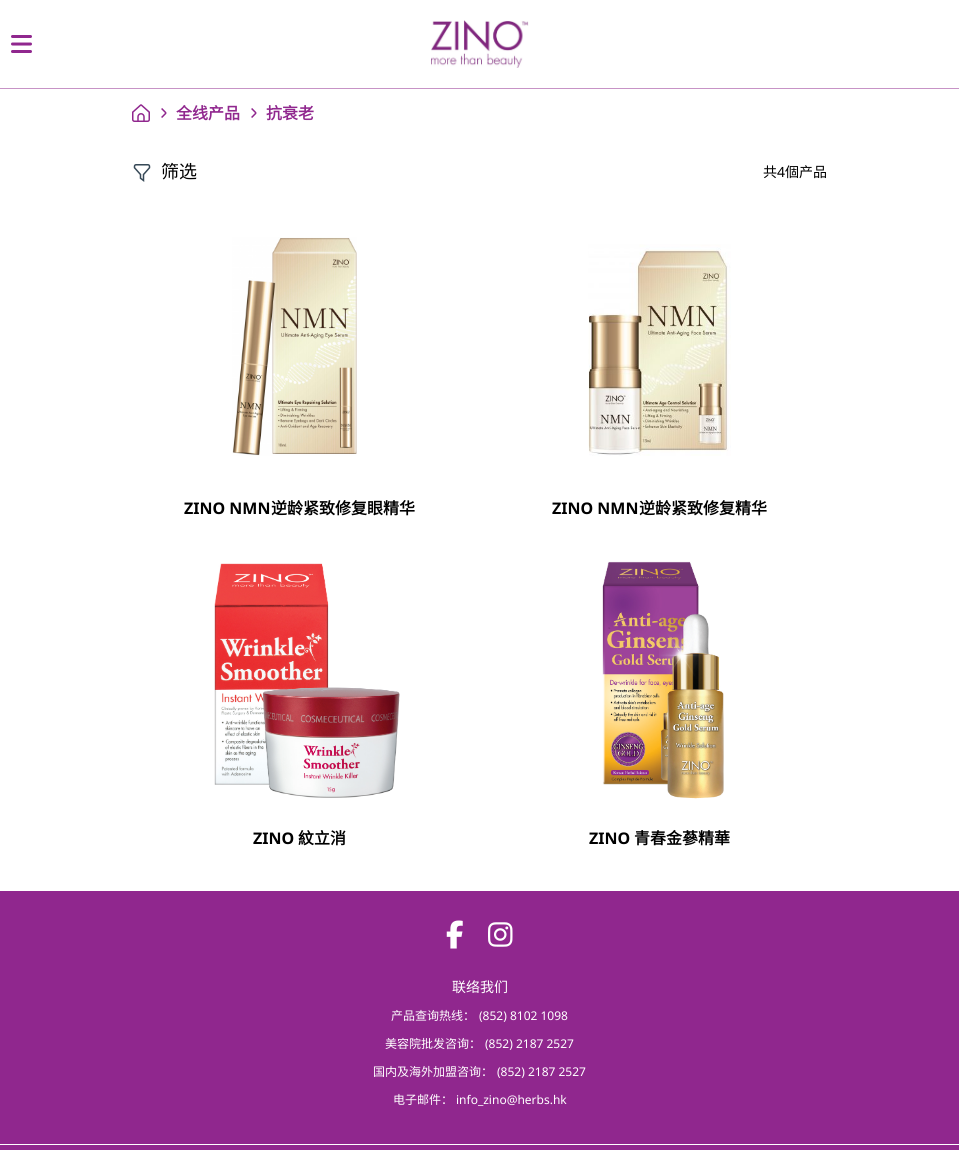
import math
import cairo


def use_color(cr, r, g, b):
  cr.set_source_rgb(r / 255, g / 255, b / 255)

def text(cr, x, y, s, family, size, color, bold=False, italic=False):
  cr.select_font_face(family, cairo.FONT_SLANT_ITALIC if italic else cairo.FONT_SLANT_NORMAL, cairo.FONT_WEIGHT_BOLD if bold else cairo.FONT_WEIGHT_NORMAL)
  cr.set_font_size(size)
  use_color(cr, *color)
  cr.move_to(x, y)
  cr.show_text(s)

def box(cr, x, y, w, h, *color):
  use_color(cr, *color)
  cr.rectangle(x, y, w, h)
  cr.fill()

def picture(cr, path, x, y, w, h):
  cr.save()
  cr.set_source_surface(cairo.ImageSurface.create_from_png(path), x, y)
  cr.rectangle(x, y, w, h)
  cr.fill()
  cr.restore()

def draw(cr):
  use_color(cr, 255, 255, 255)
  cr.paint()
  picture(cr, "img_01.png", 11, 35, 21, 18)
  picture(cr, "img_02.png", 431, 20, 98, 48)
  box(cr, 0, 88, 959, 1, 199, 147, 198)
  picture(cr, "img_03.png", 132, 104, 18, 18)
  picture(cr, "img_04.png", 161, 108, 6, 10)
  picture(cr, "img_04.png", 251, 108, 6, 10)
  picture(cr, "img_05.png", 133, 164, 18, 18)
  picture(cr, "img_06.png", 232, 237, 125, 219)
  picture(cr, "img_07.png", 588, 244, 143, 212)
  picture(cr, "img_08.png", 214, 563, 186, 235)
  picture(cr, "img_09.png", 602, 561, 122, 238)
  box(cr, 0, 891, 959, 253, 144, 39, 142)
  picture(cr, "img_10.png", 446, 920, 17, 29)
  picture(cr, "img_11.png", 488, 922, 25, 25)
  box(cr, 0, 1145, 959, 5, 144, 39, 142)
  text(cr, 176, 119, "全线产品", "Noto Sans CJK SC", 16, (144, 39, 142), bold=True)
  text(cr, 266, 119, "抗衰老", "Noto Sans CJK SC", 16, (144, 39, 142), bold=True)
  text(cr, 161, 178, "筛选", "Noto Sans CJK SC", 18, (0, 0, 0))
  text(cr, 763, 177, "共", "Noto Sans CJK SC", 14, (0, 0, 0))
  text(cr, 777, 177, "4", "Noto Sans", 14, (0, 0, 0))
  text(cr, 785, 177, "個产品", "Noto Sans CJK SC", 14, (0, 0, 0))
  text(cr, 184, 514, "ZINO NMN", "Noto Sans", 16, (0, 0, 0), bold=True)
  text(cr, 271, 514, "逆龄紧致修复眼精华", "Noto Sans CJK SC", 16, (0, 0, 0), bold=True)
  text(cr, 552, 514, "ZINO NMN", "Noto Sans", 16, (0, 0, 0), bold=True)
  text(cr, 639, 514, "逆龄紧致修复精华", "Noto Sans CJK SC", 16, (0, 0, 0), bold=True)
  text(cr, 253, 844, "ZINO", "Noto Sans", 16, (0, 0, 0), bold=True)
  text(cr, 298, 844, "紋立消", "Noto Sans CJK SC", 16, (0, 0, 0), bold=True)
  text(cr, 589, 844, "ZINO", "Noto Sans", 16, (0, 0, 0), bold=True)
  text(cr, 634, 844, "青春金蔘精華", "Noto Sans CJK SC", 16, (0, 0, 0), bold=True)
  text(cr, 452, 992, "联络我们", "Noto Sans CJK SC", 14, (255, 255, 255))
  text(cr, 391, 1020, "产品查询热线：", "Noto Sans CJK SC", 12, (255, 255, 255))
  text(cr, 479, 1020, "(852) 8102 1098", "Noto Sans", 12, (255, 255, 255))
  text(cr, 385, 1048, "美容院批发咨询：", "Noto Sans CJK SC", 12, (255, 255, 255))
  text(cr, 485, 1048, "(852) 2187 2527", "Noto Sans", 12, (255, 255, 255))
  text(cr, 373, 1076, "国内及海外加盟咨询：", "Noto Sans CJK SC", 12, (255, 255, 255))
  text(cr, 497, 1076, "(852) 2187 2527", "Noto Sans", 12, (255, 255, 255))
  text(cr, 393, 1104, "电子邮件：", "Noto Sans CJK SC", 12, (255, 255, 255))
  text(cr, 456, 1104, "info_zino@herbs.hk", "Noto Sans", 12, (255, 255, 255))


surface = cairo.ImageSurface(cairo.FORMAT_RGB24, 959, 1150)
cr = cairo.Context(surface)
options = cairo.FontOptions()
options.set_hint_metrics(cairo.HINT_METRICS_OFF)
options.set_hint_style(cairo.HINT_STYLE_NONE)
cr.set_font_options(options)
cr.set_miter_limit(4)
draw(cr)
surface.write_to_png("out.png")
